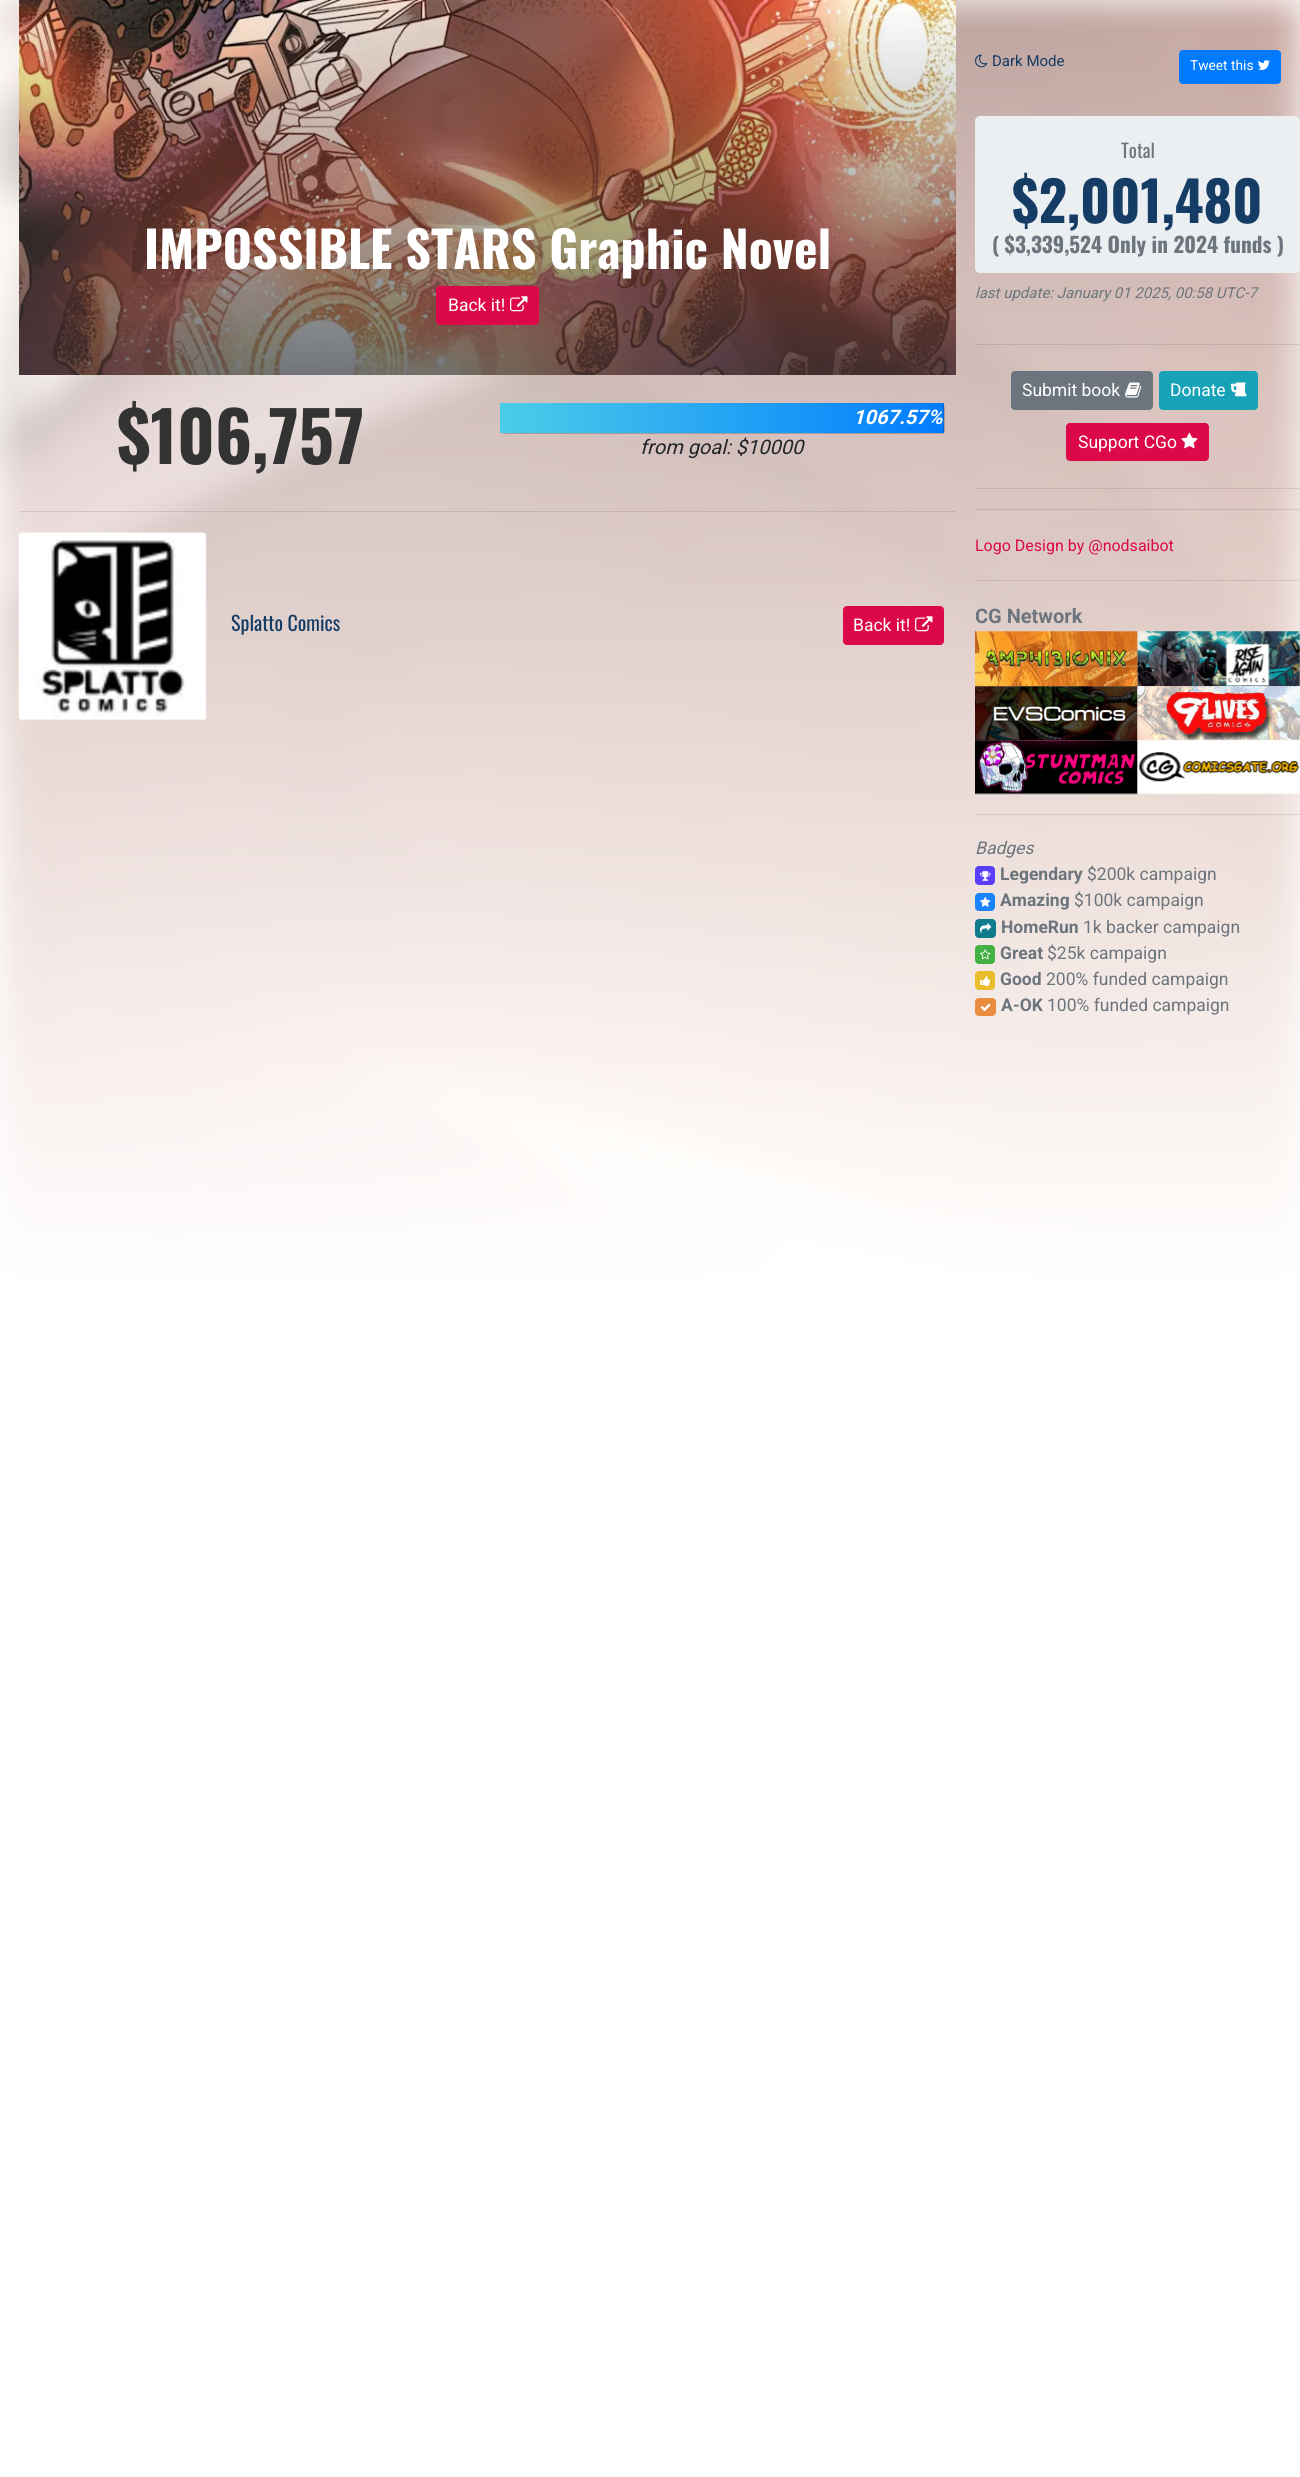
import math
import cairo


def use_color(cr, r, g, b):
  cr.set_source_rgb(r / 255, g / 255, b / 255)

def text(cr, x, y, s, family, size, color, bold=False, italic=False):
  cr.select_font_face(family, cairo.FONT_SLANT_ITALIC if italic else cairo.FONT_SLANT_NORMAL, cairo.FONT_WEIGHT_BOLD if bold else cairo.FONT_WEIGHT_NORMAL)
  cr.set_font_size(size)
  use_color(cr, *color)
  cr.move_to(x, y)
  cr.show_text(s)

def box(cr, x, y, w, h, *color):
  use_color(cr, *color)
  cr.rectangle(x, y, w, h)
  cr.fill()

def round_rect(cr, x, y, w, h, r):
  cr.new_sub_path()
  for i, (u, v) in enumerate([(x + w - r, y + h - r), (x + r, y + h - r), (x + r, y + r), (x + w - r, y + r)]):
    cr.arc(u, v, r, i * math.pi / 2, (i + 1) * math.pi / 2)
  cr.close_path()

def picture(cr, path, x, y, w, h):
  cr.save()
  cr.set_source_surface(cairo.ImageSurface.create_from_png(path), x, y)
  cr.rectangle(x, y, w, h)
  cr.fill()
  cr.restore()

def draw(cr):
  use_color(cr, 255, 255, 255)
  cr.paint()
  picture(cr, "img_01.png", 0, 0, 1300, 1281)
  gradient = cairo.LinearGradient(650, 0, 650, 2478)
  gradient.add_color_stop_rgba(0, 1, 1, 1, 0)
  gradient.add_color_stop_rgba(0.52, 1, 1, 1, 1)
  gradient.add_color_stop_rgba(1, 1, 1, 1, 1)
  cr.set_source(gradient)
  cr.rectangle(0, 33, 1300, 1248)
  cr.fill()
  picture(cr, "img_02.png", 19, 0, 937, 375)
  use_color(cr, 221, 8, 73)
  round_rect(cr, 436.5, 286.5, 102, 38, 3.5)
  cr.fill_preserve()
  cr.set_line_width(1)
  cr.stroke()
  picture(cr, "img_03.png", 510, 296, 18, 16)
  cr.set_source_rgba(0, 0, 0, 0.2)
  cr.new_path()
  cr.move_to(501, 432)
  cr.curve_to(502, 433, 503, 434, 505, 434)
  cr.line_to(941, 434)
  cr.curve_to(943, 434, 945, 432, 945, 430)
  cr.line_to(945, 408)
  cr.curve_to(945, 407, 944, 406, 943, 405)
  cr.line_to(944, 425)
  cr.curve_to(944, 428, 944, 432, 940, 432)
  cr.line_to(503, 432)
  cr.close_path()
  cr.fill()
  gradient = cairo.LinearGradient(500, 418, 943, 418)
  gradient.add_color_stop_rgba(0, 0.29, 0.804, 0.91, 1)
  gradient.add_color_stop_rgba(1, 0.008, 0.486, 1, 1)
  cr.set_source(gradient)
  cr.rectangle(500, 403, 443, 30)
  cr.fill()
  box(cr, 943, 403, 1, 30, 5, 101, 209)
  cr.set_source_rgba(0, 0, 0, 0.1)
  cr.rectangle(19, 511, 937, 1)
  cr.fill()
  picture(cr, "img_04.png", 18, 532, 189, 189)
  use_color(cr, 221, 8, 73)
  round_rect(cr, 843.5, 606.5, 100, 38, 3.5)
  cr.fill_preserve()
  cr.stroke()
  picture(cr, "img_03.png", 915, 616, 18, 16)
  picture(cr, "img_05.png", 975, 54, 13, 14)
  use_color(cr, 0, 123, 255)
  round_rect(cr, 1179.5, 50.5, 101, 33, 3.5)
  cr.fill_preserve()
  cr.stroke()
  picture(cr, "img_06.png", 1258, 60, 12, 10)
  use_color(cr, 235, 239, 242)
  round_rect(cr, 975, 116, 325, 157, 5)
  cr.fill()
  cr.set_source_rgba(0, 0, 0, 0.1)
  cr.rectangle(975, 344, 325, 1)
  cr.fill()
  use_color(cr, 108, 117, 125)
  round_rect(cr, 1011.5, 371.5, 141, 38, 3.5)
  cr.fill_preserve()
  cr.stroke()
  picture(cr, "img_07.png", 1125, 382, 17, 16)
  use_color(cr, 23, 162, 184)
  round_rect(cr, 1159.5, 371.5, 98, 38, 3.5)
  cr.fill_preserve()
  cr.stroke()
  picture(cr, "img_08.png", 1230, 382, 17, 15)
  use_color(cr, 221, 8, 73)
  round_rect(cr, 1066.5, 423.5, 142, 37, 3.5)
  cr.fill_preserve()
  cr.stroke()
  picture(cr, "img_09.png", 1181, 432, 17, 17)
  cr.set_source_rgba(0, 0, 0, 0.1)
  cr.rectangle(975, 488, 325, 1)
  cr.fill()
  cr.rectangle(975, 509, 325, 1)
  cr.fill()
  cr.rectangle(975, 580, 325, 1)
  cr.fill()
  picture(cr, "img_10.png", 975, 631, 163, 56)
  picture(cr, "img_11.png", 1137, 631, 163, 56)
  picture(cr, "img_12.png", 975, 686, 163, 54)
  picture(cr, "img_13.png", 1137, 686, 163, 54)
  picture(cr, "img_14.png", 975, 739, 163, 56)
  picture(cr, "img_15.png", 1137, 739, 163, 56)
  cr.rectangle(975, 814, 325, 1)
  cr.fill()
  use_color(cr, 90, 62, 254)
  round_rect(cr, 975, 866, 20, 19, 4)
  cr.fill()
  picture(cr, "img_16.png", 980, 871, 11, 10)
  use_color(cr, 27, 131, 251)
  round_rect(cr, 975, 893, 20, 18, 4)
  cr.fill()
  picture(cr, "img_17.png", 980, 896, 11, 11)
  use_color(cr, 16, 124, 140)
  round_rect(cr, 975, 919, 21, 19, 4)
  cr.fill()
  picture(cr, "img_18.png", 980, 923, 12, 11)
  use_color(cr, 67, 177, 67)
  round_rect(cr, 975, 945, 20, 19, 4)
  cr.fill()
  picture(cr, "img_19.png", 980, 949, 11, 11)
  use_color(cr, 233, 188, 42)
  round_rect(cr, 975, 971, 20, 19, 4)
  cr.fill()
  picture(cr, "img_20.png", 980, 976, 10, 10)
  use_color(cr, 234, 140, 63)
  round_rect(cr, 975, 998, 21, 18, 4)
  cr.fill()
  picture(cr, "img_21.png", 980, 1003, 11, 9)
  text(cr, 144, 269, "IMPOSSIBLE STARS Graphic Novel", "Oswald", 50, (255, 255, 255), bold=True)
  text(cr, 448, 311, "Back it!", "Roboto", 17.5, (255, 255, 255))
  text(cr, 117, 464, "$106,757", "Oswald", 69, (51, 51, 51), bold=True)
  text(cr, 853, 424, "1067.57%", "Roboto", 20, (255, 255, 255), bold=True, italic=True)
  text(cr, 640, 454, "from goal: $10000", "Roboto", 20, (33, 37, 41), italic=True)
  text(cr, 231, 631, "Splatto Comics", "Oswald", 20, (20, 60, 101))
  text(cr, 853, 631, "Back it!", "Roboto", 17.5, (255, 255, 255))
  text(cr, 992, 66, "Dark Mode", "Roboto", 15, (20, 60, 101))
  text(cr, 1190, 70, "Tweet this", "Roboto", 13.75, (255, 255, 255))
  text(cr, 1121, 158, "Total", "Oswald", 19, (108, 117, 125))
  text(cr, 1012, 223, "$2,001,480", "Oswald", 55, (20, 60, 101), bold=True)
  text(cr, 992, 253, "( $3,339,524 Only in 2024 funds )", "Oswald", 21.25, (108, 117, 125), bold=True)
  text(cr, 975, 298, "last update: January 01 2025, 00:58 UTC-7", "Roboto", 15, (108, 117, 125), italic=True)
  text(cr, 1022, 396, "Submit book", "Roboto", 17.5, (255, 255, 255))
  text(cr, 1170, 396, "Donate", "Roboto", 17.5, (255, 255, 255))
  text(cr, 1078, 448, "Support CGo", "Roboto", 17.5, (255, 255, 255))
  text(cr, 975, 551, "Logo Design by @nodsaibot", "Roboto", 16, (221, 8, 73))
  text(cr, 975, 623, "CG Network", "Roboto", 20, (108, 117, 125), bold=True)
  text(cr, 975, 854, "Badges", "Roboto", 17.5, (108, 117, 125), italic=True)
  text(cr, 1000, 880, "Legendary", "Roboto", 17.5, (108, 117, 125), bold=True)
  text(cr, 1087, 880, "$200k campaign", "Roboto", 17.5, (108, 117, 125))
  text(cr, 1000, 906, "Amazing", "Roboto", 17.5, (108, 117, 125), bold=True)
  text(cr, 1074, 906, "$100k campaign", "Roboto", 17.5, (108, 117, 125))
  text(cr, 1001, 933, "HomeRun", "Roboto", 17.5, (108, 117, 125), bold=True)
  text(cr, 1083, 933, "1k backer campaign", "Roboto", 17.5, (108, 117, 125))
  text(cr, 1000, 959, "Great", "Roboto", 17.5, (108, 117, 125), bold=True)
  text(cr, 1047, 959, "$25k campaign", "Roboto", 17.5, (108, 117, 125))
  text(cr, 1000, 985, "Good", "Roboto", 17.5, (108, 117, 125), bold=True)
  text(cr, 1046, 985, "200% funded campaign", "Roboto", 17.5, (108, 117, 125))
  text(cr, 1001, 1011, "A-OK", "Roboto", 17.5, (108, 117, 125), bold=True)
  text(cr, 1047, 1011, "100% funded campaign", "Roboto", 17.5, (108, 117, 125))


surface = cairo.ImageSurface(cairo.FORMAT_RGB24, 1300, 2477)
cr = cairo.Context(surface)
options = cairo.FontOptions()
options.set_hint_metrics(cairo.HINT_METRICS_OFF)
options.set_hint_style(cairo.HINT_STYLE_NONE)
cr.set_font_options(options)
cr.set_miter_limit(4)
draw(cr)
surface.write_to_png("out.png")
